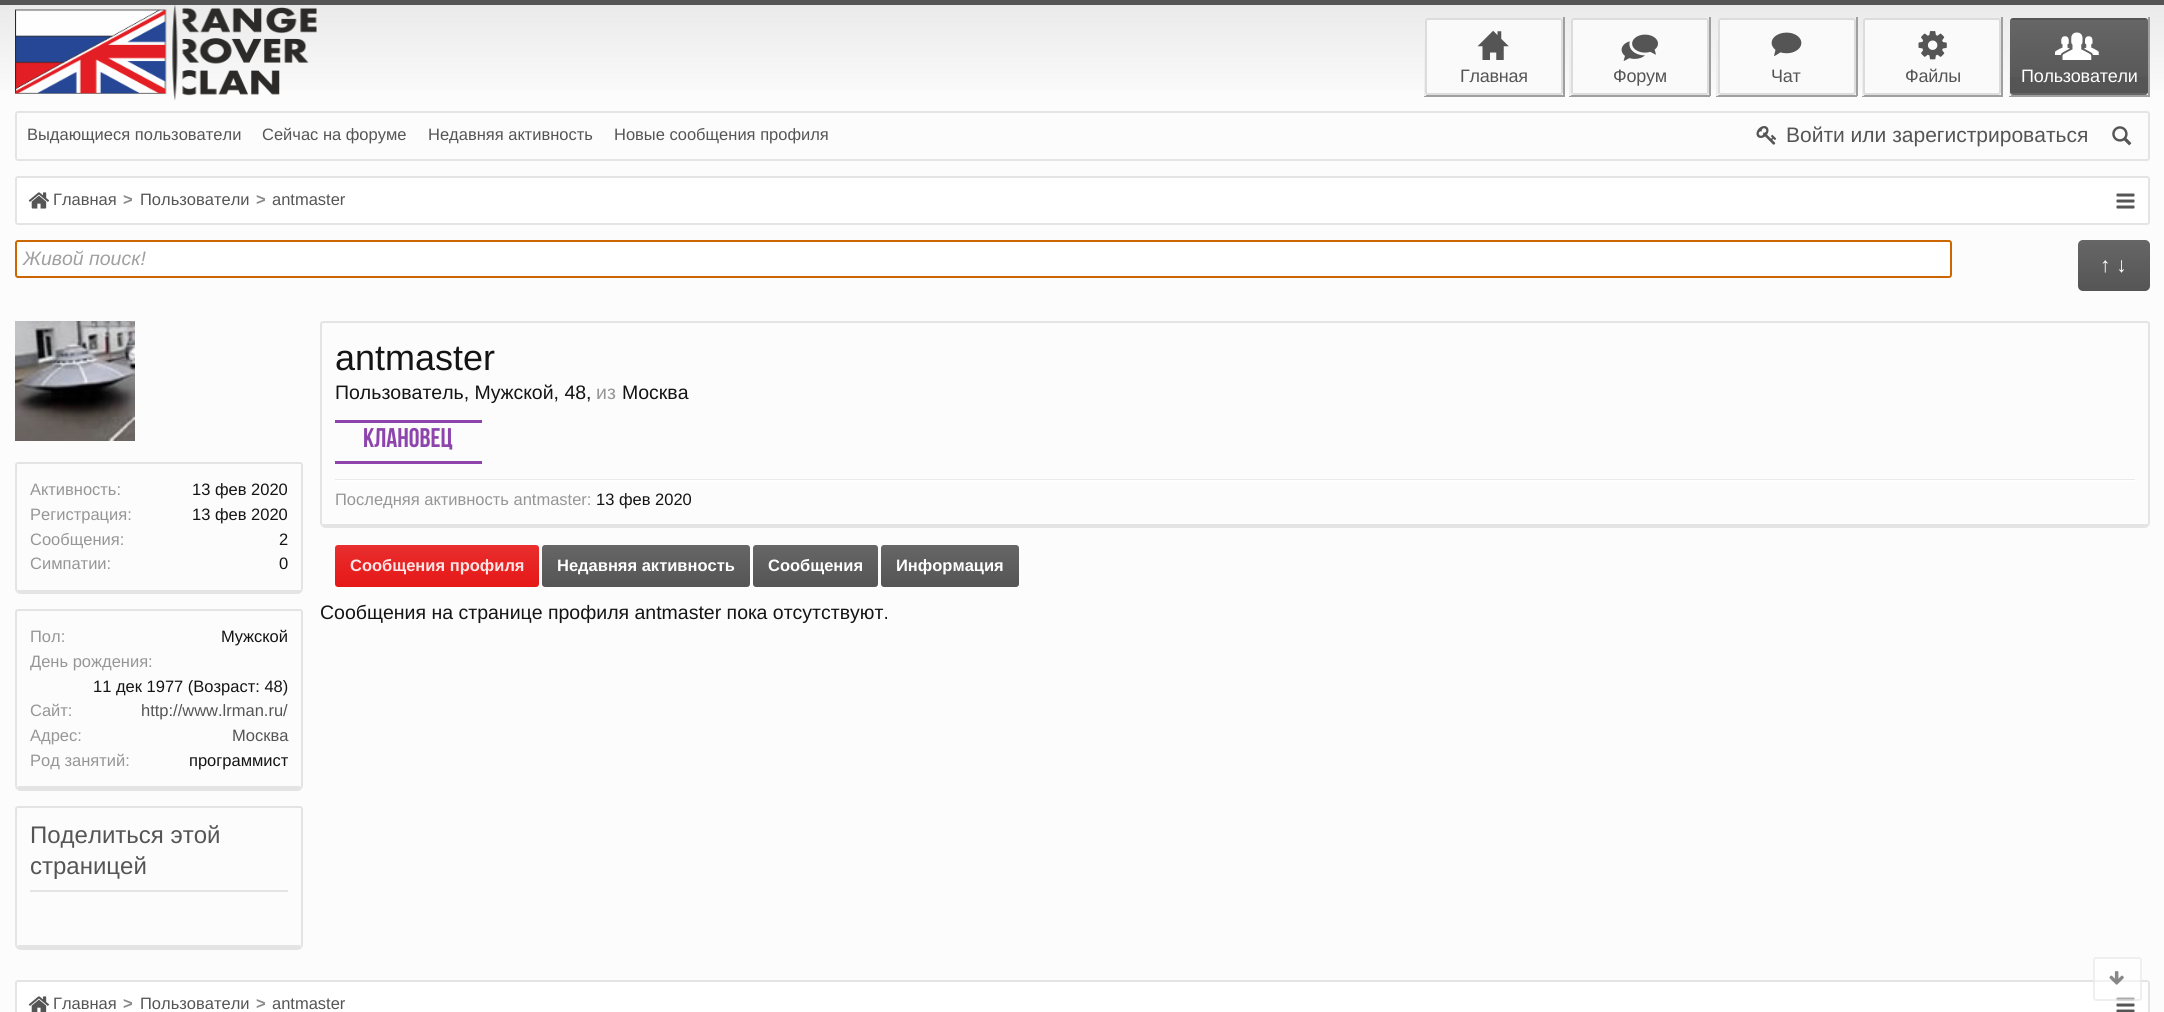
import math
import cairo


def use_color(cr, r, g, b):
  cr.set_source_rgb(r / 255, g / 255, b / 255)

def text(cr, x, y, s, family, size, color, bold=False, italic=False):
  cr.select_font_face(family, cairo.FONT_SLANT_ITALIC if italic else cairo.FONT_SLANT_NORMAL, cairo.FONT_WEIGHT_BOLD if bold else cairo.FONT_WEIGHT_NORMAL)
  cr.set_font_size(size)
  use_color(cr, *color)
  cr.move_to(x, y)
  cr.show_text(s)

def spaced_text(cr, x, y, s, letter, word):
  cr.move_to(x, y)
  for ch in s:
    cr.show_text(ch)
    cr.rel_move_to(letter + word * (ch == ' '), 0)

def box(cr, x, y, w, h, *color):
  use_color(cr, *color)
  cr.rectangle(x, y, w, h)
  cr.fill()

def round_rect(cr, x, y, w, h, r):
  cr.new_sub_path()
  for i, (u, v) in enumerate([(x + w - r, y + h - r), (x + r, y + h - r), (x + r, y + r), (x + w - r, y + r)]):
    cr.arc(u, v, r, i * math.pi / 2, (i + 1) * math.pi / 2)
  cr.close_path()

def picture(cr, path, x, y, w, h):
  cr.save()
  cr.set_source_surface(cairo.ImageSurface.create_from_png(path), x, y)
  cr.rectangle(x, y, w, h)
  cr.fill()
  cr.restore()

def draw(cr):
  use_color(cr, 252, 252, 252)
  cr.paint()
  gradient = cairo.LinearGradient(1082, 4.5, 1082, 176)
  gradient.add_color_stop_rgba(0, 0.918, 0.918, 0.918, 1)
  gradient.add_color_stop_rgba(0.61, 0.992, 0.992, 0.992, 1)
  cr.set_source(gradient)
  cr.rectangle(0, 5, 2164, 85)
  cr.fill()
  box(cr, 0, 0, 2164, 5, 85, 85, 85)
  picture(cr, "img_01.png", 15, 5, 302, 96)
  box(cr, 1563, 17, 2, 79, 159, 159, 159)
  box(cr, 1424, 95, 141, 2, 159, 159, 159)
  box(cr, 1424, 40, 2, 56, 238, 238, 238)
  use_color(cr, 250, 250, 250)
  round_rect(cr, 1425, 18, 138, 77, 3)
  cr.fill()
  round_rect(cr, 1426, 19, 136, 75, 2)
  cr.set_source_rgba(0.588, 0.588, 0.588, 0.3)
  cr.stroke()
  picture(cr, "img_02.png", 1477, 30, 32, 30)
  box(cr, 1709, 17, 2, 79, 159, 159, 159)
  box(cr, 1569, 95, 141, 2, 159, 159, 159)
  box(cr, 1569, 40, 2, 56, 238, 238, 238)
  use_color(cr, 250, 250, 250)
  round_rect(cr, 1571, 18, 138, 77, 3)
  cr.fill()
  round_rect(cr, 1572, 19, 136, 75, 2)
  cr.set_source_rgba(0.588, 0.588, 0.588, 0.3)
  cr.stroke()
  picture(cr, "img_03.png", 1621, 34, 37, 27)
  box(cr, 1856, 17, 2, 79, 159, 159, 159)
  box(cr, 1716, 95, 141, 2, 159, 159, 159)
  box(cr, 1716, 40, 2, 56, 238, 238, 238)
  use_color(cr, 250, 250, 250)
  round_rect(cr, 1718, 18, 138, 77, 3)
  cr.fill()
  round_rect(cr, 1719, 19, 136, 75, 2)
  cr.set_source_rgba(0.588, 0.588, 0.588, 0.3)
  cr.stroke()
  picture(cr, "img_04.png", 1771, 32, 31, 25)
  box(cr, 2001, 17, 2, 79, 159, 159, 159)
  box(cr, 1862, 95, 141, 2, 159, 159, 159)
  box(cr, 1862, 40, 2, 56, 238, 238, 238)
  use_color(cr, 250, 250, 250)
  round_rect(cr, 1863, 18, 138, 77, 3)
  cr.fill()
  round_rect(cr, 1864, 19, 136, 75, 2)
  cr.set_source_rgba(0.588, 0.588, 0.588, 0.3)
  cr.stroke()
  picture(cr, "img_05.png", 1918, 31, 29, 29)
  box(cr, 2148, 17, 2, 79, 159, 159, 159)
  box(cr, 2009, 95, 141, 2, 159, 159, 159)
  box(cr, 2009, 40, 2, 56, 238, 238, 238)
  use_color(cr, 85, 85, 85)
  round_rect(cr, 2010, 18, 138, 77, 3)
  cr.fill()
  gradient = cairo.LinearGradient(2079, 19, 2079, 93)
  gradient.add_color_stop_rgba(0, 1, 1, 1, 0.1)
  gradient.add_color_stop_rgba(1, 1, 1, 1, 0)
  cr.set_source(gradient)
  cr.rectangle(2010, 20, 138, 57)
  cr.fill()
  gradient = cairo.LinearGradient(2079, 93, 2079, 167)
  gradient.add_color_stop_rgba(0, 1, 1, 1, 0.1)
  gradient.add_color_stop_rgba(1, 1, 1, 1, 0)
  cr.set_source(gradient)
  cr.rectangle(2010, 93, 138, 2)
  cr.fill()
  picture(cr, "img_06.png", 2055, 32, 44, 28)
  round_rect(cr, 16, 112, 2133, 48, 2)
  use_color(cr, 228, 228, 228)
  cr.stroke()
  picture(cr, "img_07.png", 1756, 126, 21, 19)
  picture(cr, "img_08.png", 2112, 126, 20, 20)
  use_color(cr, 255, 255, 255)
  round_rect(cr, 16, 177, 2133, 47, 2)
  cr.fill_preserve()
  use_color(cr, 228, 228, 228)
  cr.stroke()
  picture(cr, "img_09.png", 28, 192, 21, 17)
  picture(cr, "img_10.png", 2116, 193, 19, 16)
  use_color(cr, 255, 255, 255)
  round_rect(cr, 16, 241, 1935, 36, 2)
  cr.fill_preserve()
  use_color(cr, 204, 102, 0)
  cr.stroke()
  use_color(cr, 85, 85, 85)
  round_rect(cr, 2078, 240, 72, 51, 5)
  cr.fill()
  gradient = cairo.LinearGradient(2114, 240, 2114, 291)
  gradient.add_color_stop_rgba(0, 1, 1, 1, 0.1)
  gradient.add_color_stop_rgba(1, 1, 1, 1, 0)
  cr.set_source(gradient)
  round_rect(cr, 2078, 240, 72, 51, 5)
  cr.fill()
  picture(cr, "img_11.png", 15, 321, 120, 120)
  cr.new_path()
  cr.move_to(18, 463)
  cr.line_to(300, 463)
  cr.curve_to(301, 463, 302, 464, 302, 465)
  cr.line_to(302, 588)
  cr.curve_to(302, 591, 300, 593, 297, 593)
  cr.line_to(21, 593)
  cr.curve_to(18, 593, 16, 591, 16, 588)
  cr.line_to(16, 465)
  cr.curve_to(16, 464, 17, 463, 18, 463)
  cr.close_path()
  use_color(cr, 228, 228, 228)
  cr.stroke()
  box(cr, 18, 590, 282, 2, 228, 228, 228)
  cr.new_path()
  cr.move_to(18, 610)
  cr.line_to(300, 610)
  cr.curve_to(301, 610, 302, 611, 302, 612)
  cr.line_to(302, 785)
  cr.curve_to(302, 788, 300, 790, 297, 790)
  cr.line_to(21, 790)
  cr.curve_to(18, 790, 16, 788, 16, 785)
  cr.line_to(16, 612)
  cr.curve_to(16, 611, 17, 610, 18, 610)
  cr.close_path()
  cr.stroke()
  box(cr, 18, 786, 282, 3, 228, 228, 228)
  cr.new_path()
  cr.move_to(18, 807)
  cr.line_to(300, 807)
  cr.curve_to(301, 807, 302, 808, 302, 809)
  cr.line_to(302, 944)
  cr.curve_to(302, 947, 300, 949, 297, 949)
  cr.line_to(21, 949)
  cr.curve_to(18, 949, 16, 947, 16, 944)
  cr.line_to(16, 809)
  cr.curve_to(16, 808, 17, 807, 18, 807)
  cr.close_path()
  cr.stroke()
  box(cr, 18, 945, 282, 3, 228, 228, 228)
  box(cr, 30, 890, 258, 2, 228, 228, 228)
  cr.new_path()
  cr.move_to(323, 322)
  cr.line_to(2147, 322)
  cr.curve_to(2148, 322, 2149, 323, 2149, 324)
  cr.line_to(2149, 522)
  cr.curve_to(2149, 525, 2147, 527, 2144, 527)
  cr.line_to(326, 527)
  cr.curve_to(323, 527, 321, 525, 321, 522)
  cr.line_to(321, 324)
  cr.curve_to(321, 323, 322, 322, 323, 322)
  cr.close_path()
  cr.stroke()
  box(cr, 323, 524, 1824, 2, 228, 228, 228)
  box(cr, 335, 420, 147, 3, 142, 68, 173)
  box(cr, 335, 461, 147, 3, 142, 68, 173)
  box(cr, 335, 479, 1800, 1, 234, 234, 234)
  box(cr, 335, 480, 1800, 2, 255, 255, 255)
  use_color(cr, 230, 23, 23)
  round_rect(cr, 335, 545, 204, 42, 3)
  cr.fill()
  gradient = cairo.LinearGradient(437, 545, 437, 587)
  gradient.add_color_stop_rgba(0, 1, 1, 1, 0.1)
  gradient.add_color_stop_rgba(1, 1, 1, 1, 0)
  cr.set_source(gradient)
  round_rect(cr, 335, 545, 204, 42, 3)
  cr.fill()
  use_color(cr, 85, 85, 85)
  round_rect(cr, 542, 545, 208, 42, 3)
  cr.fill()
  gradient = cairo.LinearGradient(646, 545, 646, 587)
  gradient.add_color_stop_rgba(0, 1, 1, 1, 0.1)
  gradient.add_color_stop_rgba(1, 1, 1, 1, 0)
  cr.set_source(gradient)
  round_rect(cr, 542, 545, 208, 42, 3)
  cr.fill()
  use_color(cr, 85, 85, 85)
  round_rect(cr, 753, 545, 125, 42, 3)
  cr.fill()
  gradient = cairo.LinearGradient(815, 545, 815, 587)
  gradient.add_color_stop_rgba(0, 1, 1, 1, 0.1)
  gradient.add_color_stop_rgba(1, 1, 1, 1, 0)
  cr.set_source(gradient)
  round_rect(cr, 753, 545, 125, 42, 3)
  cr.fill()
  use_color(cr, 85, 85, 85)
  round_rect(cr, 881, 545, 138, 42, 3)
  cr.fill()
  gradient = cairo.LinearGradient(950, 545, 950, 587)
  gradient.add_color_stop_rgba(0, 1, 1, 1, 0.1)
  gradient.add_color_stop_rgba(1, 1, 1, 1, 0)
  cr.set_source(gradient)
  round_rect(cr, 881, 545, 138, 42, 3)
  cr.fill()
  use_color(cr, 255, 255, 255)
  round_rect(cr, 16, 981, 2133, 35, 2)
  cr.fill_preserve()
  use_color(cr, 228, 228, 228)
  cr.stroke()
  picture(cr, "img_12.png", 28, 996, 21, 16)
  picture(cr, "img_13.png", 2116, 997, 19, 15)
  cr.set_source_rgba(1, 1, 1, 0.5)
  round_rect(cr, 2093, 957, 49, 44, 3)
  cr.fill()
  gradient = cairo.LinearGradient(2117, 999, 2117, 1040)
  gradient.add_color_stop_rgba(0, 1, 1, 1, 0.1)
  gradient.add_color_stop_rgba(1, 1, 1, 1, 0)
  cr.set_source(gradient)
  cr.rectangle(2116, 999, 26, 2)
  cr.fill()
  round_rect(cr, 2094, 958, 47, 42, 2)
  cr.set_source_rgba(0.878, 0.878, 0.878, 0.5)
  cr.stroke()
  picture(cr, "img_14.png", 2109, 971, 15, 14)
  cr.select_font_face("Liberation Sans")
  cr.set_font_size(18)
  use_color(cr, 85, 85, 85)
  spaced_text(cr, 1460, 82, "Главная", -0.25, 0)
  spaced_text(cr, 1613, 82, "Форум", -0.25, 0)
  spaced_text(cr, 1771, 82, "Чат", -0.25, 0)
  spaced_text(cr, 1905, 82, "Файлы", -0.25, 0)
  use_color(cr, 255, 255, 255)
  spaced_text(cr, 2021, 82, "Пользователи", -0.25, 0)
  text(cr, 27, 140, "Выдающиеся пользователи", "Liberation Sans", 16.5, (85, 85, 85))
  text(cr, 262, 140, "Сейчас на форуме", "Liberation Sans", 16.5, (85, 85, 85))
  text(cr, 428, 140, "Недавняя активность", "Liberation Sans", 16.5, (85, 85, 85))
  text(cr, 614, 140, "Новые сообщения профиля", "Liberation Sans", 16.5, (85, 85, 85))
  text(cr, 1786, 142, "Войти или зарегистрироваться", "Liberation Sans", 21, (85, 85, 85))
  text(cr, 53, 205, "Главная", "Liberation Sans", 16.5, (85, 85, 85))
  cr.select_font_face("Liberation Sans", cairo.FONT_SLANT_NORMAL, cairo.FONT_WEIGHT_BOLD)
  use_color(cr, 138, 138, 138)
  spaced_text(cr, 123, 205, ">", -3, 0)
  text(cr, 140, 205, "Пользователи", "Liberation Sans", 16.5, (85, 85, 85))
  cr.select_font_face("Liberation Sans", cairo.FONT_SLANT_NORMAL, cairo.FONT_WEIGHT_BOLD)
  use_color(cr, 138, 138, 138)
  spaced_text(cr, 256, 205, ">", -3, 0)
  text(cr, 272, 205, "antmaster", "Liberation Sans", 16.5, (85, 85, 85))
  text(cr, 23, 265, "Живой поиск!", "Liberation Sans", 19.5, (160, 160, 160), italic=True)
  text(cr, 2100, 272, "↑ ↓", "Liberation Sans", 21, (255, 255, 255))
  text(cr, 30, 495, "Активность:", "Liberation Sans", 16.5, (150, 150, 150))
  text(cr, 192, 495, "13 фев 2020", "Liberation Sans", 16.5, (20, 20, 20))
  text(cr, 30, 520, "Регистрация:", "Liberation Sans", 16.5, (150, 150, 150))
  text(cr, 192, 520, "13 фев 2020", "Liberation Sans", 16.5, (20, 20, 20))
  text(cr, 30, 545, "Сообщения:", "Liberation Sans", 16.5, (150, 150, 150))
  text(cr, 279, 545, "2", "Liberation Sans", 16.5, (20, 20, 20))
  text(cr, 30, 569, "Симпатии:", "Liberation Sans", 16.5, (150, 150, 150))
  text(cr, 279, 569, "0", "Liberation Sans", 16.5, (20, 20, 20))
  text(cr, 30, 642, "Пол:", "Liberation Sans", 16.5, (150, 150, 150))
  text(cr, 221, 642, "Мужской", "Liberation Sans", 16.5, (20, 20, 20))
  text(cr, 30, 667, "День рождения:", "Liberation Sans", 16.5, (150, 150, 150))
  text(cr, 93, 692, "11 дек 1977 (Возраст: 48)", "Liberation Sans", 16.5, (20, 20, 20))
  text(cr, 30, 716, "Сайт:", "Liberation Sans", 16.5, (150, 150, 150))
  text(cr, 141, 716, "http://www.lrman.ru/", "Liberation Sans", 16.5, (85, 85, 85))
  text(cr, 30, 741, "Адрес:", "Liberation Sans", 16.5, (150, 150, 150))
  text(cr, 232, 741, "Москва", "Liberation Sans", 16.5, (85, 85, 85))
  text(cr, 30, 766, "Род занятий:", "Liberation Sans", 16.5, (150, 150, 150))
  text(cr, 189, 766, "программист", "Liberation Sans", 16.5, (20, 20, 20))
  text(cr, 30, 843, "Поделиться этой", "Liberation Sans", 24, (85, 85, 85))
  text(cr, 30, 874, "страницей", "Liberation Sans", 24, (85, 85, 85))
  text(cr, 335, 370, "antmaster", "Liberation Sans", 36, (20, 20, 20))
  text(cr, 335, 399, "Пользователь, Мужской, 48,", "Liberation Sans", 19.5, (20, 20, 20))
  text(cr, 596, 399, "из", "Liberation Sans", 19.5, (150, 150, 150))
  text(cr, 622, 399, "Москва", "Liberation Sans", 19.5, (20, 20, 20))
  text(cr, 363, 447, "Клановец", "Bebas Neue", 27, (142, 68, 173), bold=True)
  text(cr, 335, 505, "Последняя активность antmaster:", "Liberation Sans", 16.5, (150, 150, 150))
  text(cr, 596, 505, "13 фев 2020", "Liberation Sans", 16.5, (20, 20, 20))
  text(cr, 350, 571, "Сообщения профиля", "Liberation Sans", 16.5, (255, 229, 229), bold=True)
  text(cr, 557, 571, "Недавняя активность", "Liberation Sans", 16.5, (255, 255, 255), bold=True)
  text(cr, 768, 571, "Сообщения", "Liberation Sans", 16.5, (255, 255, 255), bold=True)
  text(cr, 896, 571, "Информация", "Liberation Sans", 16.5, (255, 255, 255), bold=True)
  text(cr, 320, 619, "Сообщения на странице профиля antmaster пока отсутствуют.", "Liberation Sans", 19.5, (20, 20, 20))
  text(cr, 53, 1009, "Главная", "Liberation Sans", 16.5, (85, 85, 85))
  cr.select_font_face("Liberation Sans", cairo.FONT_SLANT_NORMAL, cairo.FONT_WEIGHT_BOLD)
  use_color(cr, 138, 138, 138)
  spaced_text(cr, 123, 1009, ">", -3, 0)
  text(cr, 140, 1009, "Пользователи", "Liberation Sans", 16.5, (85, 85, 85))
  cr.select_font_face("Liberation Sans", cairo.FONT_SLANT_NORMAL, cairo.FONT_WEIGHT_BOLD)
  use_color(cr, 138, 138, 138)
  spaced_text(cr, 256, 1009, ">", -3, 0)
  text(cr, 272, 1009, "antmaster", "Liberation Sans", 16.5, (85, 85, 85))


surface = cairo.ImageSurface(cairo.FORMAT_RGB24, 2164, 1012)
cr = cairo.Context(surface)
options = cairo.FontOptions()
options.set_hint_metrics(cairo.HINT_METRICS_OFF)
options.set_hint_style(cairo.HINT_STYLE_NONE)
cr.set_font_options(options)
cr.set_miter_limit(4)
draw(cr)
surface.write_to_png("out.png")
